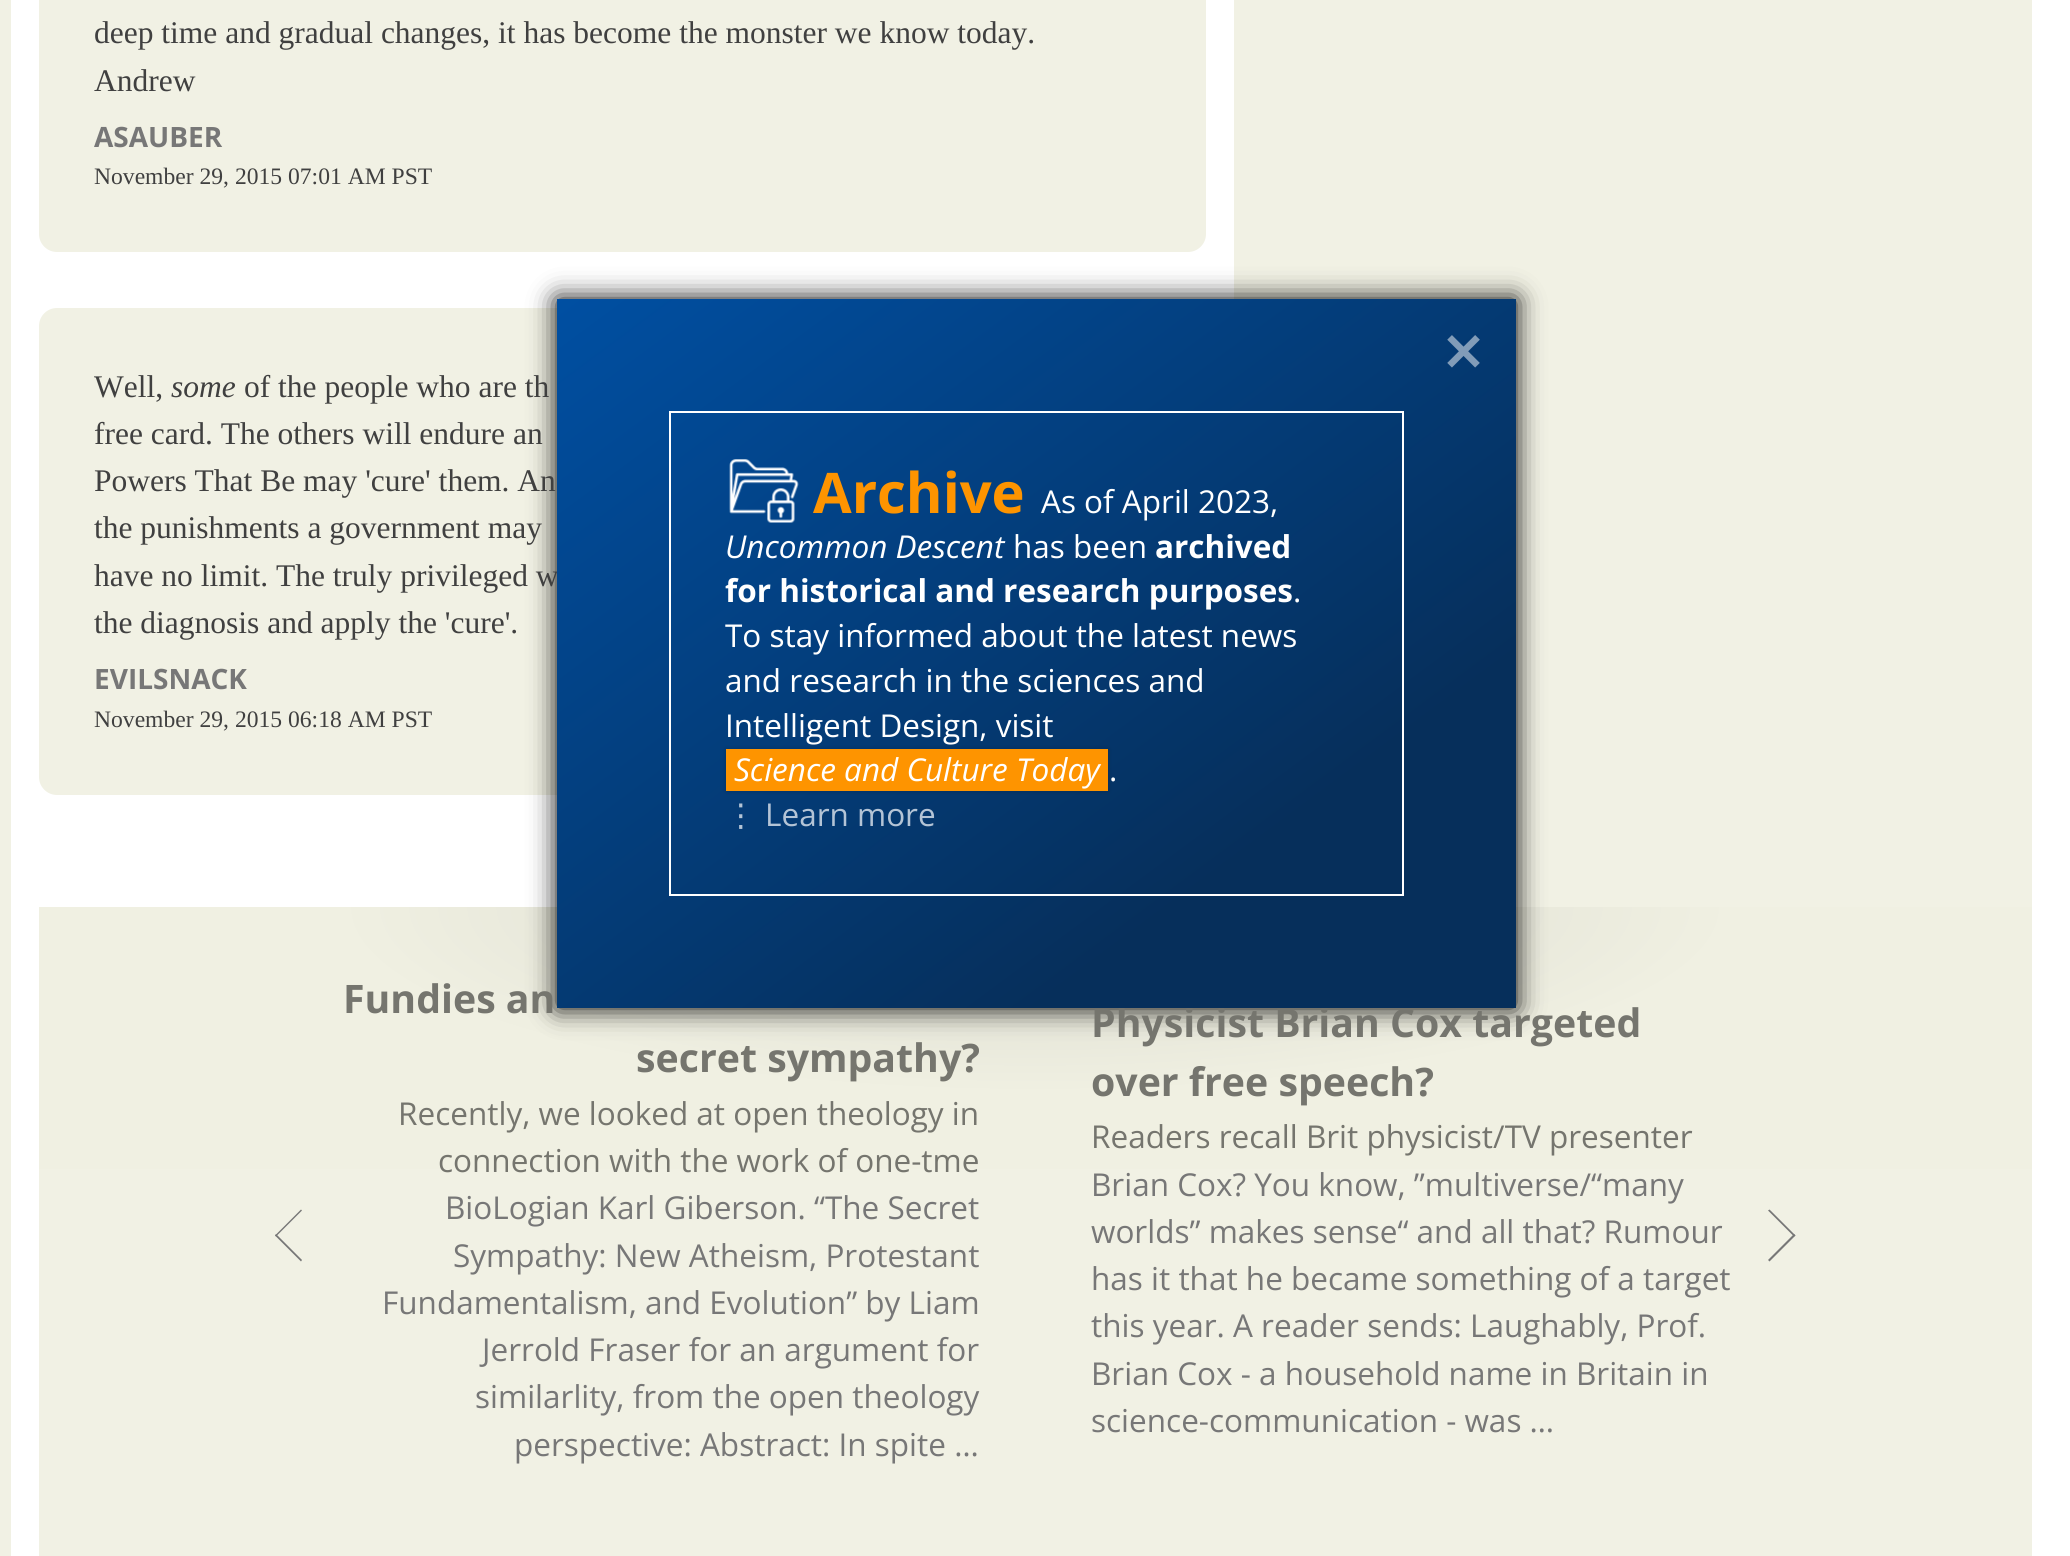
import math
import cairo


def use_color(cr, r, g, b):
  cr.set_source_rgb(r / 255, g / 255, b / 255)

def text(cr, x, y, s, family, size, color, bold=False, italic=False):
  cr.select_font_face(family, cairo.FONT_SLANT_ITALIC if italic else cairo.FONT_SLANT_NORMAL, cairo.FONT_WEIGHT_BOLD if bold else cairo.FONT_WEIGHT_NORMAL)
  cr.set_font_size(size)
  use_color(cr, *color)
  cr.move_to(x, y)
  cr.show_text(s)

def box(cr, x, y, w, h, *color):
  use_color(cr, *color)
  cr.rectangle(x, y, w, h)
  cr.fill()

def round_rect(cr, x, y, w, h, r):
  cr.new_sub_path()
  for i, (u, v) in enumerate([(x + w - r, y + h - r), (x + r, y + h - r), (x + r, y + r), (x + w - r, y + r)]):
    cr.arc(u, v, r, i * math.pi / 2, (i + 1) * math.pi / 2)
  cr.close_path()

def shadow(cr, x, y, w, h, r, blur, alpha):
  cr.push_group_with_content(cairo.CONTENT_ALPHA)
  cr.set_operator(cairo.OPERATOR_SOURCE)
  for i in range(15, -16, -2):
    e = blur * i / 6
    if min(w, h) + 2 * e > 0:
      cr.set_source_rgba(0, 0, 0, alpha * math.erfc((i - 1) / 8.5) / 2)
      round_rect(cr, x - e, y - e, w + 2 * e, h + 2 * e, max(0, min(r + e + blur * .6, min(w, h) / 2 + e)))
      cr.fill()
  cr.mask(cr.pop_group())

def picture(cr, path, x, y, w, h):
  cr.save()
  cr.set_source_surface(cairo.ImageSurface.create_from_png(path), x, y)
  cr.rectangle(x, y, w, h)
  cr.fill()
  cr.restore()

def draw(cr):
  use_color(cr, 255, 255, 255)
  cr.paint()
  gradient = cairo.LinearGradient(0, -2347, 2070, -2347)
  gradient.add_color_stop_rgba(0, 0.945, 0.945, 0.894, 1)
  gradient.add_color_stop_rgba(1, 1, 1, 1, 1)
  cr.set_source(gradient)
  cr.rectangle(0, 0, 1878, 1556)
  cr.fill()
  box(cr, 11, 0, 1867, 1556, 255, 255, 255)
  use_color(cr, 241, 241, 228)
  round_rect(cr, 39, -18, 1167, 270, 18)
  cr.fill()
  round_rect(cr, 39, 308, 1167, 487, 18)
  cr.fill()
  box(cr, 1234, 0, 798, 907, 241, 241, 228)
  box(cr, 39, 1169, 1993, 387, 241, 241, 228)
  gradient = cairo.RadialGradient(0, 0, 0, 0, 0, 1)
  gradient.set_matrix(cairo.Matrix(1 / 1409, 0, 0, 1 / 371, -1 * 1035 / 1409, -1 * 907 / 371))
  gradient.add_color_stop_rgba(0, 0.847, 0.847, 0.8, 1)
  gradient.add_color_stop_rgba(0.5, 0.941, 0.941, 0.886, 1)
  gradient.add_color_stop_rgba(1, 0.941, 0.941, 0.886, 1)
  cr.set_source(gradient)
  cr.rectangle(39, 907, 1993, 262)
  cr.fill()
  use_color(cr, 119, 119, 119)
  cr.new_path()
  cr.move_to(276, 1234)
  cr.line_to(302, 1260)
  cr.line_to(301, 1261.5)
  cr.line_to(275, 1235.5)
  cr.close_path()
  cr.fill()
  cr.new_path()
  cr.move_to(301, 1209.5)
  cr.line_to(302, 1210.5)
  cr.line_to(276, 1236.5)
  cr.line_to(275, 1235.5)
  cr.close_path()
  cr.fill()
  cr.new_path()
  cr.move_to(1769.5, 1209.5)
  cr.line_to(1795.5, 1235.5)
  cr.line_to(1794, 1236.5)
  cr.line_to(1768, 1210.5)
  cr.close_path()
  cr.fill()
  cr.new_path()
  cr.move_to(1794, 1234)
  cr.line_to(1795.5, 1235.5)
  cr.line_to(1769.5, 1261.5)
  cr.line_to(1768, 1260)
  cr.close_path()
  cr.fill()
  use_color(cr, 0, 0, 0)
  shadow(cr, 557, 299, 959, 709, 0, 13, 1)
  text(cr, 94, 43, "deep time and gradual changes, it has become the monster we know today.", "Liberation Serif", 31.5, (64, 64, 64))
  text(cr, 94, 91, "Andrew", "Liberation Serif", 31.5, (64, 64, 64))
  text(cr, 94, 147, "ASAUBER", "Open Sans", 28, (119, 119, 119), bold=True)
  text(cr, 94, 184, "November 29, 2015 07:01 AM PST", "Liberation Serif", 23.6, (64, 64, 64))
  text(cr, 94, 397, "Well,", "Liberation Serif", 31.5, (64, 64, 64))
  text(cr, 171, 397, "some", "Liberation Serif", 31.5, (64, 64, 64), italic=True)
  text(cr, 244, 397, "of the people who are th", "Liberation Serif", 31.5, (64, 64, 64))
  text(cr, 94, 444, "free card. The others will endure an", "Liberation Serif", 31.5, (64, 64, 64))
  text(cr, 94, 491, "Powers That Be may 'cure' them. An", "Liberation Serif", 31.5, (64, 64, 64))
  text(cr, 94, 538, "the punishments a government may", "Liberation Serif", 31.5, (64, 64, 64))
  text(cr, 94, 586, "have no limit. The truly privileged w", "Liberation Serif", 31.5, (64, 64, 64))
  text(cr, 94, 633, "the diagnosis and apply the 'cure'.", "Liberation Serif", 31.5, (64, 64, 64))
  text(cr, 94, 689, "EVILSNACK", "Open Sans", 28, (119, 119, 119), bold=True)
  text(cr, 94, 727, "November 29, 2015 06:18 AM PST", "Liberation Serif", 23.6, (64, 64, 64))
  text(cr, 343, 1013, "Fundies an", "Open Sans", 39.25, (117, 117, 110), bold=True)
  text(cr, 636, 1072, "secret sympathy?", "Open Sans", 39.25, (117, 117, 110), bold=True)
  text(cr, 398, 1125, "Recently, we looked at open theology in", "Open Sans", 31.5, (117, 117, 110))
  text(cr, 438, 1172, "connection with the work of one-tme", "Open Sans", 31.5, (117, 117, 110))
  text(cr, 445, 1219, "BioLogian Karl Giberson. “The Secret", "Open Sans", 31.5, (119, 119, 119))
  text(cr, 453, 1267, "Sympathy: New Atheism, Protestant", "Open Sans", 31.5, (119, 119, 119))
  text(cr, 382, 1314, "Fundamentalism, and Evolution” by Liam", "Open Sans", 31.5, (119, 119, 119))
  text(cr, 482, 1361, "Jerrold Fraser for an argument for", "Open Sans", 31.5, (119, 119, 119))
  text(cr, 475, 1408, "similarlity, from the open theology", "Open Sans", 31.5, (119, 119, 119))
  text(cr, 514, 1456, "perspective: Abstract: In spite …", "Open Sans", 31.5, (119, 119, 119))
  text(cr, 1091, 1037, "Physicist Brian Cox targeted", "Open Sans", 39.25, (117, 117, 110), bold=True)
  text(cr, 1091, 1096, "over free speech?", "Open Sans", 39.25, (117, 117, 110), bold=True)
  text(cr, 1091, 1148, "Readers recall Brit physicist/TV presenter", "Open Sans", 31.5, (117, 117, 110))
  text(cr, 1091, 1196, "Brian Cox? You know, ”multiverse/“many", "Open Sans", 31.5, (119, 119, 119))
  text(cr, 1091, 1243, "worlds” makes sense“ and all that? Rumour", "Open Sans", 31.5, (119, 119, 119))
  text(cr, 1091, 1290, "has it that he became something of a target", "Open Sans", 31.5, (119, 119, 119))
  text(cr, 1091, 1337, "this year. A reader sends: Laughably, Prof.", "Open Sans", 31.5, (119, 119, 119))
  text(cr, 1091, 1385, "Brian Cox - a household name in Britain in", "Open Sans", 31.5, (119, 119, 119))
  text(cr, 1091, 1432, "science-communication - was …", "Open Sans", 31.5, (119, 119, 119))
  gradient = cairo.LinearGradient(697, 195, 1375, 1112)
  gradient.add_color_stop_rgba(0, 0, 0.31, 0.635, 1)
  gradient.add_color_stop_rgba(0.75, 0.024, 0.184, 0.357, 1)
  cr.set_source(gradient)
  cr.rectangle(557, 299, 959, 709)
  cr.fill()
  cr.rectangle(670, 412, 733, 483)
  use_color(cr, 255, 255, 255)
  cr.stroke()
  text(cr, 1441, 371, "✕", "DejaVu Sans", 52, (130, 156, 184), bold=True)
  picture(cr, "img_01.png", 729, 459, 70, 64)
  text(cr, 813, 513, "Archive", "Open Sans", 56, (254, 148, 0), bold=True)
  text(cr, 1041, 513, "As of April 2023,", "Open Sans", 31.5, (255, 255, 255))
  text(cr, 725, 558, "Uncommon Descent", "Open Sans", 31.5, (255, 255, 255), italic=True)
  text(cr, 1013, 558, "has been", "Open Sans", 31.5, (255, 255, 255))
  text(cr, 1155, 558, "archived", "Open Sans", 31.5, (255, 255, 255), bold=True)
  text(cr, 725, 602, "for historical and research purposes", "Open Sans", 31.5, (255, 255, 255), bold=True)
  text(cr, 1293, 602, ".", "Open Sans", 31.5, (255, 255, 255))
  text(cr, 725, 647, "To stay informed about the latest news", "Open Sans", 31.5, (255, 255, 255))
  text(cr, 725, 692, "and research in the sciences and", "Open Sans", 31.5, (255, 255, 255))
  text(cr, 725, 737, "Intelligent Design, visit", "Open Sans", 31.5, (255, 255, 255))
  use_color(cr, 0, 0, 0)
  shadow(cr, 726, 749, 382, 42, 0, 2.5, 0.2)
  box(cr, 726, 749, 382, 42, 254, 148, 0)
  text(cr, 734, 781, "Science and Culture Today", "Open Sans", 31.5, (255, 255, 255), italic=True)
  text(cr, 1109, 781, ".", "Open Sans", 31.5, (255, 255, 255))
  text(cr, 725, 826, "⋮", "DejaVu Sans", 31.5, (180, 196, 214))
  text(cr, 765, 826, "Learn more", "Open Sans", 31.5, (180, 196, 214))


surface = cairo.ImageSurface(cairo.FORMAT_RGB24, 2070, 1556)
cr = cairo.Context(surface)
options = cairo.FontOptions()
options.set_hint_metrics(cairo.HINT_METRICS_OFF)
options.set_hint_style(cairo.HINT_STYLE_NONE)
cr.set_font_options(options)
cr.set_miter_limit(4)
draw(cr)
surface.write_to_png("out.png")
